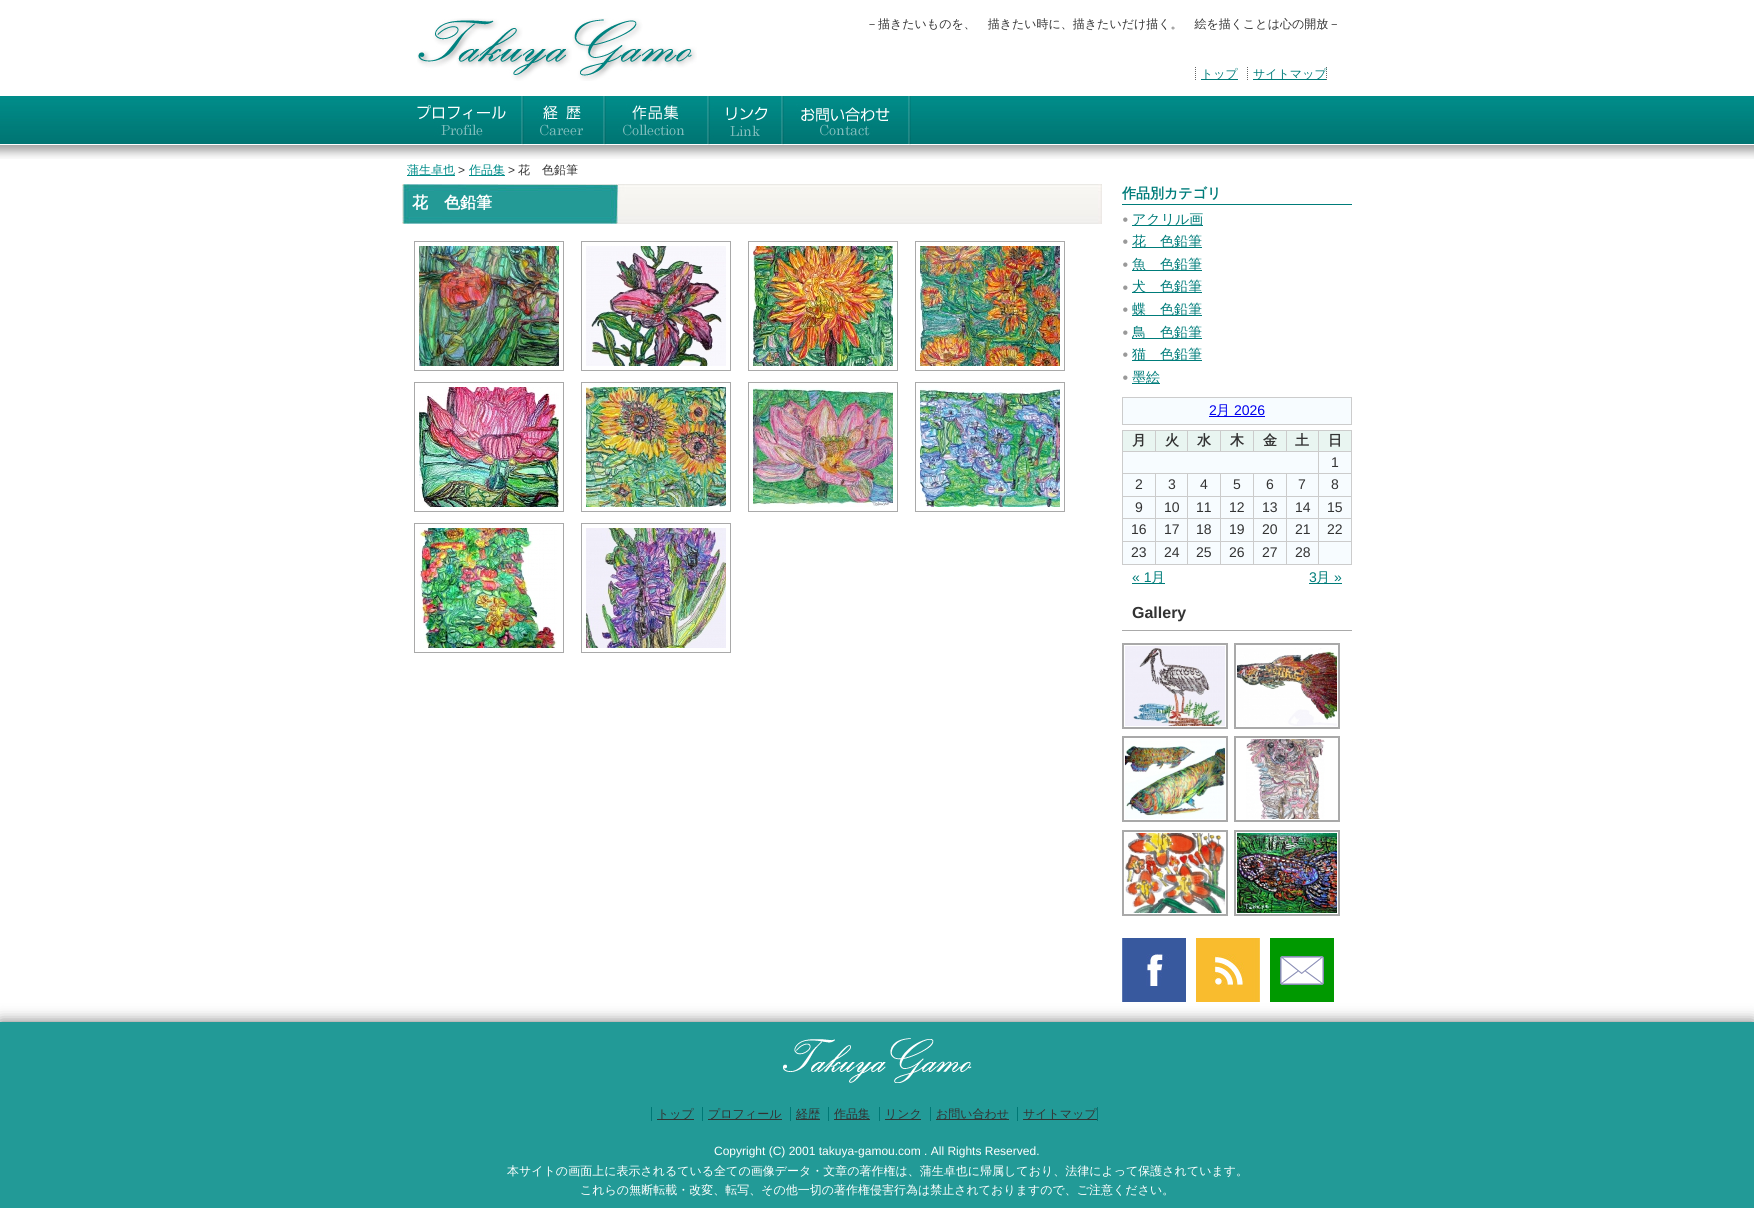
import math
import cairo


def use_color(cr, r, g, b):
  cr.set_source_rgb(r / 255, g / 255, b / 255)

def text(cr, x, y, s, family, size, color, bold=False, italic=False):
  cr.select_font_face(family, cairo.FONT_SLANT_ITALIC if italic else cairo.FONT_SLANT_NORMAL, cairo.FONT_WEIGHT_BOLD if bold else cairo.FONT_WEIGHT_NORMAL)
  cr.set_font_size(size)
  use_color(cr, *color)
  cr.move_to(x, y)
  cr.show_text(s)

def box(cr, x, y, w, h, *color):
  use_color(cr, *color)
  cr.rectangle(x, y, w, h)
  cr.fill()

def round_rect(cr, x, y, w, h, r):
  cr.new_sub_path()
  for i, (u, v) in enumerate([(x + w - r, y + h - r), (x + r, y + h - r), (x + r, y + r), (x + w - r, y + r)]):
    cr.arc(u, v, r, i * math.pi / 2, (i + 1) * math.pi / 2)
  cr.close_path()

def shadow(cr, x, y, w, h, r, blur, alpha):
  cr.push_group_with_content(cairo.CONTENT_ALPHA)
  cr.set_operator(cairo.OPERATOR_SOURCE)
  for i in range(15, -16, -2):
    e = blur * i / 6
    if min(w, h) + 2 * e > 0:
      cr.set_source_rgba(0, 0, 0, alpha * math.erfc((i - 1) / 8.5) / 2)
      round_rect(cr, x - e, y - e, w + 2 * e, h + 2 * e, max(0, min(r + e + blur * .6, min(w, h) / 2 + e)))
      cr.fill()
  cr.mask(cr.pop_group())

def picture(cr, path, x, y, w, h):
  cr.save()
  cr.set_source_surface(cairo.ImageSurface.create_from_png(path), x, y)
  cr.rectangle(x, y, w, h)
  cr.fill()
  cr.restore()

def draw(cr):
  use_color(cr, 255, 255, 255)
  cr.paint()
  picture(cr, "img_01.png", 417, 18, 280, 63)
  cr.new_path()
  cr.move_to(1195.5, 67)
  cr.line_to(1195.5, 81)
  use_color(cr, 102, 102, 102)
  cr.set_line_width(1)
  cr.set_dash([1, 1])
  cr.stroke()
  box(cr, 1201, 79, 37, 1, 0, 124, 122)
  cr.new_path()
  cr.move_to(1326.5, 67)
  cr.line_to(1326.5, 81)
  use_color(cr, 102, 102, 102)
  cr.stroke()
  cr.new_path()
  cr.move_to(1247.5, 67)
  cr.line_to(1247.5, 81)
  cr.stroke()
  box(cr, 1253, 79, 73, 1, 0, 124, 122)
  picture(cr, "img_02.png", 0, 96, 1754, 63)
  picture(cr, "img_03.png", 417, 96, 494, 49)
  picture(cr, "img_04.png", 417, 105, 89, 15)
  picture(cr, "img_05.png", 543, 105, 38, 15)
  picture(cr, "img_06.png", 632, 105, 47, 15)
  picture(cr, "img_07.png", 726, 107, 42, 14)
  picture(cr, "img_08.png", 801, 107, 89, 15)
  box(cr, 407, 175, 48, 1, 0, 140, 137)
  box(cr, 469, 175, 36, 1, 0, 140, 137)
  picture(cr, "img_09.png", 402, 184, 700, 40)
  cr.rectangle(414.5, 241.5, 149, 129)
  use_color(cr, 169, 169, 169)
  cr.set_dash([])
  cr.stroke()
  picture(cr, "img_10.png", 419, 246, 140, 120)
  cr.rectangle(581.5, 241.5, 149, 129)
  cr.stroke()
  picture(cr, "img_11.png", 586, 246, 140, 120)
  cr.rectangle(748.5, 241.5, 149, 129)
  cr.stroke()
  picture(cr, "img_12.png", 753, 246, 140, 120)
  cr.rectangle(915.5, 241.5, 149, 129)
  cr.stroke()
  picture(cr, "img_13.png", 920, 246, 140, 120)
  cr.rectangle(414.5, 382.5, 149, 129)
  cr.stroke()
  picture(cr, "img_14.png", 419, 387, 140, 120)
  cr.rectangle(581.5, 382.5, 149, 129)
  cr.stroke()
  picture(cr, "img_15.png", 586, 387, 140, 120)
  cr.rectangle(748.5, 382.5, 149, 129)
  cr.stroke()
  picture(cr, "img_16.png", 753, 388, 140, 119)
  cr.rectangle(915.5, 382.5, 149, 129)
  cr.stroke()
  picture(cr, "img_17.png", 920, 388, 140, 119)
  cr.rectangle(414.5, 523.5, 149, 129)
  cr.stroke()
  picture(cr, "img_18.png", 419, 528, 138, 120)
  cr.rectangle(581.5, 523.5, 149, 129)
  cr.stroke()
  picture(cr, "img_19.png", 586, 528, 140, 120)
  box(cr, 1122, 204, 230, 1, 0, 124, 122)
  picture(cr, "img_20.png", 1123, 217, 5, 5)
  box(cr, 1132, 225, 71, 1, 0, 124, 122)
  picture(cr, "img_20.png", 1123, 239, 5, 5)
  box(cr, 1132, 247, 70, 1, 0, 124, 122)
  picture(cr, "img_20.png", 1123, 262, 5, 5)
  box(cr, 1132, 270, 70, 1, 0, 124, 122)
  picture(cr, "img_20.png", 1123, 285, 5, 5)
  box(cr, 1132, 292, 70, 1, 0, 124, 122)
  picture(cr, "img_20.png", 1123, 307, 5, 5)
  box(cr, 1132, 315, 70, 1, 0, 124, 122)
  picture(cr, "img_20.png", 1123, 330, 5, 5)
  box(cr, 1132, 338, 70, 1, 0, 124, 122)
  picture(cr, "img_20.png", 1123, 352, 5, 5)
  box(cr, 1132, 360, 70, 1, 0, 124, 122)
  picture(cr, "img_20.png", 1123, 375, 5, 5)
  box(cr, 1132, 383, 28, 1, 0, 124, 122)
  use_color(cr, 247, 252, 255)
  cr.rectangle(1122.5, 397.5, 229, 27)
  cr.fill_preserve()
  use_color(cr, 204, 204, 204)
  cr.stroke()
  box(cr, 1209, 416, 56, 1, 0, 0, 238)
  box(cr, 1123, 431, 32, 20, 233, 245, 241)
  box(cr, 1318, 430, 34, 1, 204, 204, 204)
  box(cr, 1318, 451, 34, 1, 204, 204, 204)
  box(cr, 1318, 473, 34, 1, 204, 204, 204)
  box(cr, 1318, 496, 34, 1, 204, 204, 204)
  box(cr, 1318, 518, 34, 1, 204, 204, 204)
  box(cr, 1318, 541, 34, 1, 204, 204, 204)
  box(cr, 1351, 541, 1, 24, 204, 204, 204)
  box(cr, 1318, 564, 34, 1, 204, 204, 204)
  box(cr, 1318, 541, 1, 24, 204, 204, 204)
  box(cr, 1286, 541, 33, 1, 204, 204, 204)
  box(cr, 1318, 518, 1, 24, 204, 204, 204)
  box(cr, 1286, 518, 33, 1, 204, 204, 204)
  box(cr, 1318, 496, 1, 23, 204, 204, 204)
  box(cr, 1286, 496, 33, 1, 204, 204, 204)
  box(cr, 1318, 473, 1, 24, 204, 204, 204)
  box(cr, 1286, 473, 33, 1, 204, 204, 204)
  box(cr, 1318, 451, 1, 23, 204, 204, 204)
  box(cr, 1122, 451, 197, 1, 204, 204, 204)
  box(cr, 1318, 430, 1, 22, 204, 204, 204)
  box(cr, 1286, 430, 33, 1, 204, 204, 204)
  box(cr, 1286, 430, 1, 22, 204, 204, 204)
  box(cr, 1253, 430, 34, 1, 204, 204, 204)
  box(cr, 1253, 430, 1, 22, 204, 204, 204)
  box(cr, 1220, 430, 34, 1, 204, 204, 204)
  box(cr, 1220, 430, 1, 22, 204, 204, 204)
  box(cr, 1187, 430, 34, 1, 204, 204, 204)
  box(cr, 1187, 430, 1, 22, 204, 204, 204)
  box(cr, 1155, 430, 33, 1, 204, 204, 204)
  box(cr, 1155, 430, 1, 22, 204, 204, 204)
  box(cr, 1122, 430, 34, 1, 204, 204, 204)
  box(cr, 1286, 564, 33, 1, 204, 204, 204)
  box(cr, 1286, 541, 1, 24, 204, 204, 204)
  box(cr, 1253, 541, 34, 1, 204, 204, 204)
  box(cr, 1286, 518, 1, 24, 204, 204, 204)
  box(cr, 1253, 518, 34, 1, 204, 204, 204)
  box(cr, 1286, 496, 1, 23, 204, 204, 204)
  box(cr, 1253, 496, 34, 1, 204, 204, 204)
  box(cr, 1286, 473, 1, 24, 204, 204, 204)
  box(cr, 1253, 473, 34, 1, 204, 204, 204)
  box(cr, 1253, 564, 34, 1, 204, 204, 204)
  box(cr, 1253, 541, 1, 24, 204, 204, 204)
  box(cr, 1220, 541, 34, 1, 204, 204, 204)
  box(cr, 1253, 518, 1, 24, 204, 204, 204)
  box(cr, 1220, 518, 34, 1, 204, 204, 204)
  box(cr, 1253, 496, 1, 23, 204, 204, 204)
  box(cr, 1220, 496, 34, 1, 204, 204, 204)
  box(cr, 1253, 473, 1, 24, 204, 204, 204)
  box(cr, 1220, 473, 34, 1, 204, 204, 204)
  box(cr, 1220, 564, 34, 1, 204, 204, 204)
  box(cr, 1220, 541, 1, 24, 204, 204, 204)
  box(cr, 1187, 541, 34, 1, 204, 204, 204)
  box(cr, 1220, 518, 1, 24, 204, 204, 204)
  box(cr, 1187, 518, 34, 1, 204, 204, 204)
  box(cr, 1220, 496, 1, 23, 204, 204, 204)
  box(cr, 1187, 496, 34, 1, 204, 204, 204)
  box(cr, 1220, 473, 1, 24, 204, 204, 204)
  box(cr, 1187, 473, 34, 1, 204, 204, 204)
  box(cr, 1187, 564, 34, 1, 204, 204, 204)
  box(cr, 1187, 541, 1, 24, 204, 204, 204)
  box(cr, 1155, 541, 33, 1, 204, 204, 204)
  box(cr, 1187, 518, 1, 24, 204, 204, 204)
  box(cr, 1155, 518, 33, 1, 204, 204, 204)
  box(cr, 1187, 496, 1, 23, 204, 204, 204)
  box(cr, 1155, 496, 33, 1, 204, 204, 204)
  box(cr, 1187, 473, 1, 24, 204, 204, 204)
  box(cr, 1155, 473, 33, 1, 204, 204, 204)
  box(cr, 1155, 564, 33, 1, 204, 204, 204)
  box(cr, 1155, 541, 1, 24, 204, 204, 204)
  box(cr, 1122, 541, 34, 1, 204, 204, 204)
  box(cr, 1155, 518, 1, 24, 204, 204, 204)
  box(cr, 1122, 518, 34, 1, 204, 204, 204)
  box(cr, 1155, 496, 1, 23, 204, 204, 204)
  box(cr, 1122, 496, 34, 1, 204, 204, 204)
  box(cr, 1155, 473, 1, 24, 204, 204, 204)
  box(cr, 1122, 473, 34, 1, 204, 204, 204)
  box(cr, 1122, 564, 34, 1, 204, 204, 204)
  box(cr, 1122, 541, 1, 24, 204, 204, 204)
  box(cr, 1122, 518, 1, 24, 204, 204, 204)
  box(cr, 1122, 496, 1, 23, 204, 204, 204)
  box(cr, 1122, 473, 1, 24, 204, 204, 204)
  box(cr, 1122, 451, 1, 23, 204, 204, 204)
  box(cr, 1122, 430, 1, 22, 204, 204, 204)
  box(cr, 1156, 431, 31, 20, 233, 245, 241)
  box(cr, 1188, 431, 32, 20, 233, 245, 241)
  box(cr, 1221, 431, 32, 20, 233, 245, 241)
  box(cr, 1254, 431, 32, 20, 233, 245, 241)
  box(cr, 1287, 431, 31, 20, 233, 245, 241)
  box(cr, 1319, 431, 32, 20, 233, 245, 241)
  box(cr, 1351, 518, 1, 24, 204, 204, 204)
  box(cr, 1351, 496, 1, 23, 204, 204, 204)
  box(cr, 1351, 473, 1, 24, 204, 204, 204)
  box(cr, 1351, 451, 1, 23, 204, 204, 204)
  box(cr, 1351, 430, 1, 22, 204, 204, 204)
  box(cr, 1123, 452, 195, 21, 247, 252, 255)
  box(cr, 1319, 452, 32, 21, 247, 252, 255)
  box(cr, 1123, 474, 32, 22, 247, 252, 255)
  box(cr, 1156, 474, 31, 22, 247, 252, 255)
  box(cr, 1188, 474, 32, 22, 247, 252, 255)
  box(cr, 1221, 474, 32, 22, 247, 252, 255)
  box(cr, 1254, 474, 32, 22, 247, 252, 255)
  box(cr, 1287, 474, 31, 22, 247, 252, 255)
  box(cr, 1319, 474, 32, 22, 247, 252, 255)
  box(cr, 1123, 497, 32, 21, 247, 252, 255)
  box(cr, 1156, 497, 31, 21, 247, 252, 255)
  box(cr, 1188, 497, 32, 21, 247, 252, 255)
  box(cr, 1221, 497, 32, 21, 247, 252, 255)
  box(cr, 1254, 497, 32, 21, 247, 252, 255)
  box(cr, 1287, 497, 31, 21, 247, 252, 255)
  box(cr, 1319, 497, 32, 21, 247, 252, 255)
  box(cr, 1123, 519, 32, 22, 247, 252, 255)
  box(cr, 1156, 519, 31, 22, 247, 252, 255)
  box(cr, 1188, 519, 32, 22, 247, 252, 255)
  box(cr, 1221, 519, 32, 22, 247, 252, 255)
  box(cr, 1254, 519, 32, 22, 247, 252, 255)
  box(cr, 1287, 519, 31, 22, 247, 252, 255)
  box(cr, 1319, 519, 32, 22, 247, 252, 255)
  box(cr, 1123, 542, 32, 22, 247, 252, 255)
  box(cr, 1156, 542, 31, 22, 247, 252, 255)
  box(cr, 1188, 542, 32, 22, 247, 252, 255)
  box(cr, 1221, 542, 32, 22, 247, 252, 255)
  box(cr, 1254, 542, 32, 22, 247, 252, 255)
  box(cr, 1287, 542, 31, 22, 247, 252, 255)
  box(cr, 1319, 542, 32, 22, 247, 252, 255)
  box(cr, 1132, 583, 33, 1, 0, 124, 122)
  box(cr, 1309, 583, 33, 1, 0, 124, 122)
  box(cr, 1122, 630, 230, 1, 170, 170, 170)
  cr.rectangle(1123, 644, 104, 84)
  use_color(cr, 169, 169, 169)
  cr.set_line_width(2)
  cr.stroke()
  cr.rectangle(1235, 644, 104, 84)
  cr.stroke()
  picture(cr, "img_21.png", 1125, 646, 100, 80)
  picture(cr, "img_22.png", 1237, 648, 100, 78)
  cr.rectangle(1123, 737, 104, 84)
  cr.stroke()
  cr.rectangle(1235, 737, 104, 84)
  cr.stroke()
  picture(cr, "img_23.png", 1125, 739, 100, 80)
  picture(cr, "img_24.png", 1246, 739, 79, 80)
  cr.rectangle(1123, 831, 104, 84)
  cr.stroke()
  cr.rectangle(1235, 831, 104, 84)
  cr.stroke()
  picture(cr, "img_25.png", 1125, 833, 100, 80)
  picture(cr, "img_26.png", 1237, 833, 100, 80)
  use_color(cr, 119, 119, 119)
  shadow(cr, 0, 1022, 1754, 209, 0, 7.5, 1)
  picture(cr, "img_27.png", 1122, 938, 64, 64)
  picture(cr, "img_28.png", 1196, 938, 64, 64)
  picture(cr, "img_29.png", 1270, 938, 64, 64)
  box(cr, 0, 1022, 1754, 186, 34, 154, 151)
  picture(cr, "img_30.png", 783, 1038, 189, 45)
  box(cr, 651, 1107, 1, 14, 0, 120, 117)
  box(cr, 657, 1119, 37, 1, 51, 51, 51)
  box(cr, 702, 1107, 1, 14, 0, 120, 117)
  box(cr, 708, 1119, 74, 1, 51, 51, 51)
  box(cr, 790, 1107, 1, 14, 0, 120, 117)
  box(cr, 796, 1119, 24, 1, 51, 51, 51)
  box(cr, 828, 1107, 1, 14, 0, 120, 117)
  box(cr, 834, 1119, 36, 1, 51, 51, 51)
  box(cr, 879, 1107, 1, 14, 0, 120, 117)
  box(cr, 885, 1119, 36, 1, 51, 51, 51)
  box(cr, 930, 1107, 1, 14, 0, 120, 117)
  box(cr, 936, 1119, 73, 1, 51, 51, 51)
  box(cr, 1097, 1107, 1, 14, 0, 120, 117)
  box(cr, 1017, 1107, 1, 14, 0, 120, 117)
  box(cr, 1023, 1119, 74, 1, 51, 51, 51)
  text(cr, 866, 28, "－描きたいものを、　描きたい時に、描きたいだけ描く。　絵を描くことは心の開放－", "WenQuanYi Zen Hei Medium", 12, (51, 51, 51))
  text(cr, 1201, 78, "トップ", "WenQuanYi Zen Hei Medium", 12, (0, 124, 122))
  text(cr, 1253, 78, "サイトマップ", "WenQuanYi Zen Hei Medium", 12, (0, 124, 122))
  text(cr, 407, 174, "蒲生卓也", "WenQuanYi Zen Hei Medium", 12, (0, 140, 137))
  text(cr, 458, 174, ">", "Liberation Sans", 12, (51, 51, 51))
  text(cr, 469, 174, "作品集", "WenQuanYi Zen Hei Medium", 12, (0, 140, 137))
  text(cr, 508, 174, ">", "Liberation Sans", 12, (51, 51, 51))
  text(cr, 518, 174, "花　色鉛筆", "WenQuanYi Zen Hei Medium", 12, (51, 51, 51))
  text(cr, 412, 208, "花　色鉛筆", "WenQuanYi Zen Hei", 16, (255, 255, 255), bold=True)
  text(cr, 1122, 198, "作品別カテゴリ", "WenQuanYi Zen Hei", 14, (0, 124, 122), bold=True)
  text(cr, 1132, 224, "アクリル画", "WenQuanYi Zen Hei Medium", 14, (0, 124, 122))
  text(cr, 1132, 246, "花　色鉛筆", "WenQuanYi Zen Hei Medium", 14, (0, 124, 122))
  text(cr, 1132, 269, "魚　色鉛筆", "WenQuanYi Zen Hei Medium", 14, (0, 124, 122))
  text(cr, 1132, 291, "犬　色鉛筆", "WenQuanYi Zen Hei Medium", 14, (0, 124, 122))
  text(cr, 1132, 314, "蝶　色鉛筆", "WenQuanYi Zen Hei Medium", 14, (0, 124, 122))
  text(cr, 1132, 337, "鳥　色鉛筆", "WenQuanYi Zen Hei Medium", 14, (0, 124, 122))
  text(cr, 1132, 359, "猫　色鉛筆", "WenQuanYi Zen Hei Medium", 14, (0, 124, 122))
  text(cr, 1132, 382, "墨絵", "WenQuanYi Zen Hei Medium", 14, (0, 124, 122))
  text(cr, 1209, 415, "2", "Liberation Sans", 14, (0, 0, 238))
  text(cr, 1216, 415, "月", "WenQuanYi Zen Hei Medium", 14, (0, 0, 238))
  text(cr, 1234, 415, "2026", "Liberation Sans", 14, (0, 0, 238))
  text(cr, 1132, 445, "月", "WenQuanYi Zen Hei", 14, (51, 51, 51), bold=True)
  text(cr, 1165, 445, "火", "WenQuanYi Zen Hei", 14, (51, 51, 51), bold=True)
  text(cr, 1197, 445, "水", "WenQuanYi Zen Hei", 14, (51, 51, 51), bold=True)
  text(cr, 1230, 445, "木", "WenQuanYi Zen Hei", 14, (51, 51, 51), bold=True)
  text(cr, 1263, 445, "金", "WenQuanYi Zen Hei", 14, (51, 51, 51), bold=True)
  text(cr, 1295, 445, "土", "WenQuanYi Zen Hei", 14, (51, 51, 51), bold=True)
  text(cr, 1328, 445, "日", "WenQuanYi Zen Hei", 14, (51, 51, 51), bold=True)
  text(cr, 1331, 467, "1", "Liberation Sans", 14, (51, 51, 51))
  text(cr, 1135, 489, "2", "Liberation Sans", 14, (51, 51, 51))
  text(cr, 1168, 489, "3", "Liberation Sans", 14, (51, 51, 51))
  text(cr, 1200, 489, "4", "Liberation Sans", 14, (51, 51, 51))
  text(cr, 1233, 489, "5", "Liberation Sans", 14, (51, 51, 51))
  text(cr, 1266, 489, "6", "Liberation Sans", 14, (51, 51, 51))
  text(cr, 1298, 489, "7", "Liberation Sans", 14, (51, 51, 51))
  text(cr, 1331, 489, "8", "Liberation Sans", 14, (51, 51, 51))
  text(cr, 1135, 512, "9", "Liberation Sans", 14, (51, 51, 51))
  text(cr, 1164, 512, "10", "Liberation Sans", 14, (51, 51, 51))
  text(cr, 1196, 512, "11", "Liberation Sans", 14, (51, 51, 51))
  text(cr, 1229, 512, "12", "Liberation Sans", 14, (51, 51, 51))
  text(cr, 1262, 512, "13", "Liberation Sans", 14, (51, 51, 51))
  text(cr, 1295, 512, "14", "Liberation Sans", 14, (51, 51, 51))
  text(cr, 1327, 512, "15", "Liberation Sans", 14, (51, 51, 51))
  text(cr, 1131, 534, "16", "Liberation Sans", 14, (51, 51, 51))
  text(cr, 1164, 534, "17", "Liberation Sans", 14, (51, 51, 51))
  text(cr, 1196, 534, "18", "Liberation Sans", 14, (51, 51, 51))
  text(cr, 1229, 534, "19", "Liberation Sans", 14, (51, 51, 51))
  text(cr, 1262, 534, "20", "Liberation Sans", 14, (51, 51, 51))
  text(cr, 1295, 534, "21", "Liberation Sans", 14, (51, 51, 51))
  text(cr, 1327, 534, "22", "Liberation Sans", 14, (51, 51, 51))
  text(cr, 1131, 557, "23", "Liberation Sans", 14, (51, 51, 51))
  text(cr, 1164, 557, "24", "Liberation Sans", 14, (51, 51, 51))
  text(cr, 1196, 557, "25", "Liberation Sans", 14, (51, 51, 51))
  text(cr, 1229, 557, "26", "Liberation Sans", 14, (51, 51, 51))
  text(cr, 1262, 557, "27", "Liberation Sans", 14, (51, 51, 51))
  text(cr, 1295, 557, "28", "Liberation Sans", 14, (51, 51, 51))
  text(cr, 1132, 582, "« 1", "Liberation Sans", 14, (0, 124, 122))
  text(cr, 1151, 582, "月", "WenQuanYi Zen Hei Medium", 14, (0, 124, 122))
  text(cr, 1309, 582, "3", "Liberation Sans", 14, (0, 124, 122))
  text(cr, 1316, 582, "月", "WenQuanYi Zen Hei Medium", 14, (0, 124, 122))
  text(cr, 1334, 582, "»", "Liberation Sans", 14, (0, 124, 122))
  text(cr, 1132, 618, "Gallery", "Liberation Sans", 16, (51, 51, 51), bold=True)
  text(cr, 657, 1118, "トップ", "WenQuanYi Zen Hei Medium", 12, (51, 51, 51))
  text(cr, 708, 1118, "プロフィール", "WenQuanYi Zen Hei Medium", 12, (51, 51, 51))
  text(cr, 796, 1118, "経歴", "WenQuanYi Zen Hei Medium", 12, (51, 51, 51))
  text(cr, 834, 1118, "作品集", "WenQuanYi Zen Hei Medium", 12, (51, 51, 51))
  text(cr, 885, 1118, "リンク", "WenQuanYi Zen Hei Medium", 12, (51, 51, 51))
  text(cr, 936, 1118, "お問い合わせ", "WenQuanYi Zen Hei Medium", 12, (51, 51, 51))
  text(cr, 1023, 1118, "サイトマップ", "WenQuanYi Zen Hei Medium", 12, (51, 51, 51))
  text(cr, 714, 1155, "Copyright (C) 2001 takuya-gamou.com . All Rights Reserved.", "Liberation Sans", 12, (255, 255, 255))
  text(cr, 507, 1175, "本サイトの画面上に表示されるている全ての画像データ・文章の著作権は、蒲生卓也に帰属しており、法律によって保護されています。", "WenQuanYi Zen Hei Medium", 12, (255, 255, 255))
  text(cr, 580, 1194, "これらの無断転載・改変、転写、その他一切の著作権侵害行為は禁止されておりますので、ご注意ください。", "WenQuanYi Zen Hei Medium", 12, (255, 255, 255))


surface = cairo.ImageSurface(cairo.FORMAT_RGB24, 1754, 1208)
cr = cairo.Context(surface)
options = cairo.FontOptions()
options.set_hint_metrics(cairo.HINT_METRICS_OFF)
options.set_hint_style(cairo.HINT_STYLE_NONE)
cr.set_font_options(options)
cr.set_miter_limit(4)
draw(cr)
surface.write_to_png("out.png")
